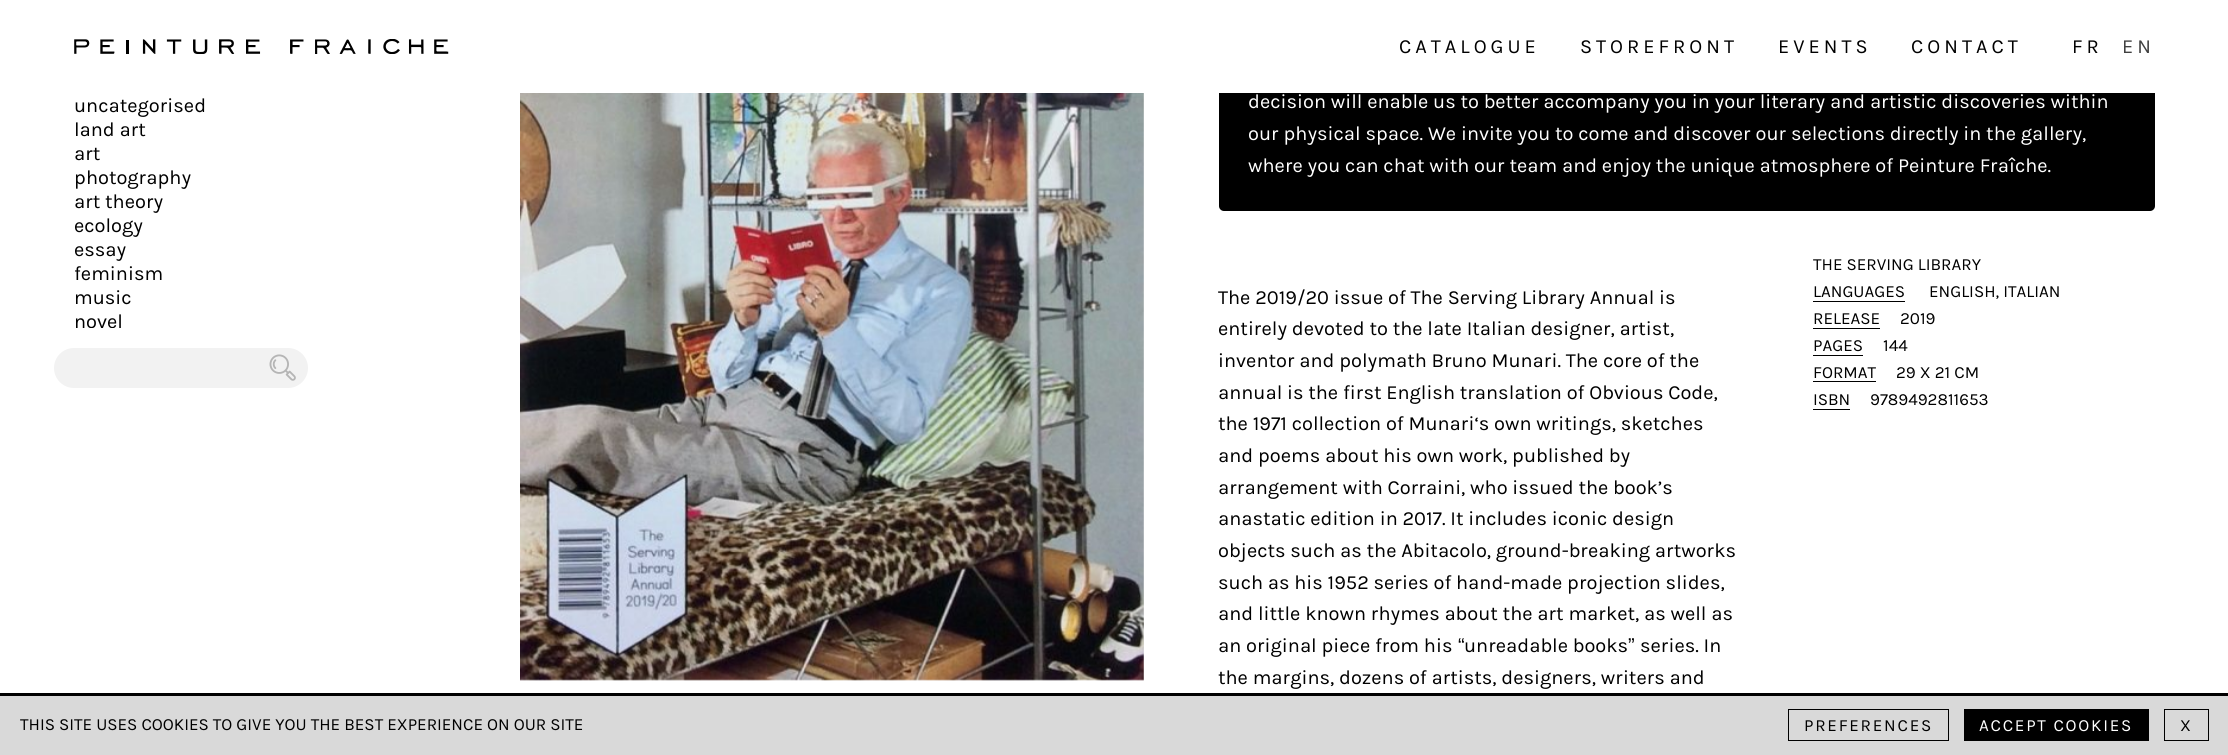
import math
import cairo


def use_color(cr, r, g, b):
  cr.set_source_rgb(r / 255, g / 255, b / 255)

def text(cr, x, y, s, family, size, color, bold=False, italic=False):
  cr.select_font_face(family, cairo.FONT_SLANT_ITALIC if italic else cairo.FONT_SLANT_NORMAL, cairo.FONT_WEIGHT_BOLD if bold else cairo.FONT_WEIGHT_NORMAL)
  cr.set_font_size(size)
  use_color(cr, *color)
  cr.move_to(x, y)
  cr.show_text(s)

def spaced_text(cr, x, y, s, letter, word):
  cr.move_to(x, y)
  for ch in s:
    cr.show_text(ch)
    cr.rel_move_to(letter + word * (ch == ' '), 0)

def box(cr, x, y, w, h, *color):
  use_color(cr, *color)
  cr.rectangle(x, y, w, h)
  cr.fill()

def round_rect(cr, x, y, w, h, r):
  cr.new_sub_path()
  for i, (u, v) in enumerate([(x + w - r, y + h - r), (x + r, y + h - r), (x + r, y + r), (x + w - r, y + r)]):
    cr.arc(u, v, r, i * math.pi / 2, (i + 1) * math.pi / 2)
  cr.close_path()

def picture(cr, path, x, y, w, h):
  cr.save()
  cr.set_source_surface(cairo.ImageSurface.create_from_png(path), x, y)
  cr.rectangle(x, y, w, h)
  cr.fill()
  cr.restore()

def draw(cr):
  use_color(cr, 255, 255, 255)
  cr.paint()
  use_color(cr, 0, 0, 0)
  round_rect(cr, 1219, -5, 936, 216, 5)
  cr.fill()
  box(cr, 1219, 0, 936, 93, 255, 255, 255)
  picture(cr, "img_01.png", 74, 39, 375, 15)
  use_color(cr, 242, 242, 242)
  round_rect(cr, 54, 348, 254, 40, 20)
  cr.fill()
  picture(cr, "img_02.png", 269, 354, 27, 27)
  box(cr, 520, 93, 624, 587, 240, 240, 240)
  picture(cr, "img_03.png", 520, 93, 624, 588)
  box(cr, 1813, 301, 92, 1, 0, 0, 0)
  box(cr, 1813, 328, 67, 1, 0, 0, 0)
  box(cr, 1813, 355, 50, 1, 0, 0, 0)
  box(cr, 1813, 381, 63, 1, 0, 0, 0)
  box(cr, 1813, 409, 37, 1, 0, 0, 0)
  box(cr, 0, 696, 2228, 59, 217, 217, 217)
  box(cr, 0, 693, 2228, 3, 0, 0, 0)
  cr.rectangle(1788.5, 709.5, 160, 31)
  cr.set_line_width(1)
  cr.stroke()
  box(cr, 1964, 709, 185, 32, 0, 0, 0)
  cr.rectangle(2164.5, 709.5, 44, 31)
  cr.stroke()
  cr.select_font_face("Karla")
  cr.set_font_size(20)
  spaced_text(cr, 1399, 53, "CATALOGUE", 4, 0)
  spaced_text(cr, 1580, 53, "STOREFRONT", 4, 0)
  spaced_text(cr, 1778, 53, "EVENTS", 4, 0)
  spaced_text(cr, 1911, 53, "CONTACT", 4, 0)
  spaced_text(cr, 2072, 53, "FR", 4, 0)
  use_color(cr, 64, 64, 64)
  spaced_text(cr, 2122, 53, "EN", 4, 0)
  text(cr, 74, 112, "uncategorised", "Karla", 20, (0, 0, 0))
  text(cr, 74, 136, "land art", "Karla", 20, (0, 0, 0))
  text(cr, 74, 160, "art", "Karla", 20, (0, 0, 0))
  text(cr, 74, 184, "photography", "Karla", 20, (0, 0, 0))
  text(cr, 74, 208, "art theory", "Karla", 20, (0, 0, 0))
  text(cr, 74, 232, "ecology", "Karla", 20, (0, 0, 0))
  text(cr, 74, 256, "essay", "Karla", 20, (0, 0, 0))
  text(cr, 74, 280, "feminism", "Karla", 20, (0, 0, 0))
  text(cr, 74, 304, "music", "Karla", 20, (0, 0, 0))
  cr.save()
  cr.rectangle(74, 93, 224, 235)
  cr.clip()
  text(cr, 74, 328, "novel", "Karla", 20, (0, 0, 0))
  cr.restore()
  text(cr, 1248, 108, "decision will enable us to better accompany you in your literary and artistic discoveries within", "Karla", 20, (255, 255, 255))
  text(cr, 1248, 140, "our physical space. We invite you to come and discover our selections directly in the gallery,", "Karla", 20, (255, 255, 255))
  text(cr, 1248, 172, "where you can chat with our team and enjoy the unique atmosphere of Peinture Fraîche.", "Karla", 20, (255, 255, 255))
  text(cr, 1218, 304, "The 2019/20 issue of The Serving Library Annual is", "Karla", 20, (0, 0, 0))
  text(cr, 1218, 335, "entirely devoted to the late Italian designer, artist,", "Karla", 20, (0, 0, 0))
  text(cr, 1218, 367, "inventor and polymath Bruno Munari. The core of the", "Karla", 20, (0, 0, 0))
  text(cr, 1218, 399, "annual is the first English translation of Obvious Code,", "Karla", 20, (0, 0, 0))
  text(cr, 1218, 430, "the 1971 collection of Munari‘s own writings, sketches", "Karla", 20, (0, 0, 0))
  text(cr, 1218, 462, "and poems about his own work, published by", "Karla", 20, (0, 0, 0))
  text(cr, 1218, 494, "arrangement with Corraini, who issued the book’s", "Karla", 20, (0, 0, 0))
  text(cr, 1218, 525, "anastatic edition in 2017. It includes iconic design", "Karla", 20, (0, 0, 0))
  text(cr, 1218, 557, "objects such as the Abitacolo, ground-breaking artworks", "Karla", 20, (0, 0, 0))
  text(cr, 1218, 589, "such as his 1952 series of hand-made projection slides,", "Karla", 20, (0, 0, 0))
  text(cr, 1218, 620, "and little known rhymes about the art market, as well as", "Karla", 20, (0, 0, 0))
  text(cr, 1218, 652, "an original piece from his", "Karla", 20, (0, 0, 0))
  text(cr, 1458, 652, "“", "Liberation Sans", 20, (0, 0, 0))
  text(cr, 1464, 652, "unreadable books", "Karla", 20, (0, 0, 0))
  text(cr, 1628, 652, "”", "Liberation Sans", 20, (0, 0, 0))
  text(cr, 1640, 652, "series. In", "Karla", 20, (0, 0, 0))
  text(cr, 1218, 684, "the margins, dozens of artists, designers, writers and", "Karla", 20, (0, 0, 0))
  text(cr, 1813, 270, "THE SERVING LIBRARY", "Karla", 17, (0, 0, 0))
  text(cr, 1813, 297, "LANGUAGES", "Karla", 17, (0, 0, 0))
  text(cr, 1929, 297, "ENGLISH, ITALIAN", "Karla", 17, (0, 0, 0))
  text(cr, 1813, 324, "RELEASE", "Karla", 17, (0, 0, 0))
  text(cr, 1900, 324, "2019", "Karla", 17, (0, 0, 0))
  text(cr, 1813, 351, "PAGES", "Karla", 17, (0, 0, 0))
  text(cr, 1883, 351, "144", "Karla", 17, (0, 0, 0))
  text(cr, 1813, 378, "FORMAT", "Karla", 17, (0, 0, 0))
  text(cr, 1896, 378, "29 X 21 CM", "Karla", 17, (0, 0, 0))
  text(cr, 1813, 405, "ISBN", "Karla", 17, (0, 0, 0))
  text(cr, 1870, 405, "9789492811653", "Karla", 17, (0, 0, 0))
  text(cr, 20, 730, "THIS SITE USES COOKIES TO GIVE YOU THE BEST EXPERIENCE ON OUR SITE", "Karla", 17, (0, 0, 0))
  spaced_text(cr, 1804, 731, "PREFERENCES", 1.75, 0)
  use_color(cr, 255, 255, 255)
  spaced_text(cr, 1979, 731, "ACCEPT COOKIES", 1.75, 0)
  use_color(cr, 0, 0, 0)
  spaced_text(cr, 2180, 731, "X", 1.75, 0)


surface = cairo.ImageSurface(cairo.FORMAT_RGB24, 2228, 755)
cr = cairo.Context(surface)
options = cairo.FontOptions()
options.set_hint_metrics(cairo.HINT_METRICS_OFF)
options.set_hint_style(cairo.HINT_STYLE_NONE)
cr.set_font_options(options)
cr.set_miter_limit(4)
draw(cr)
surface.write_to_png("out.png")
